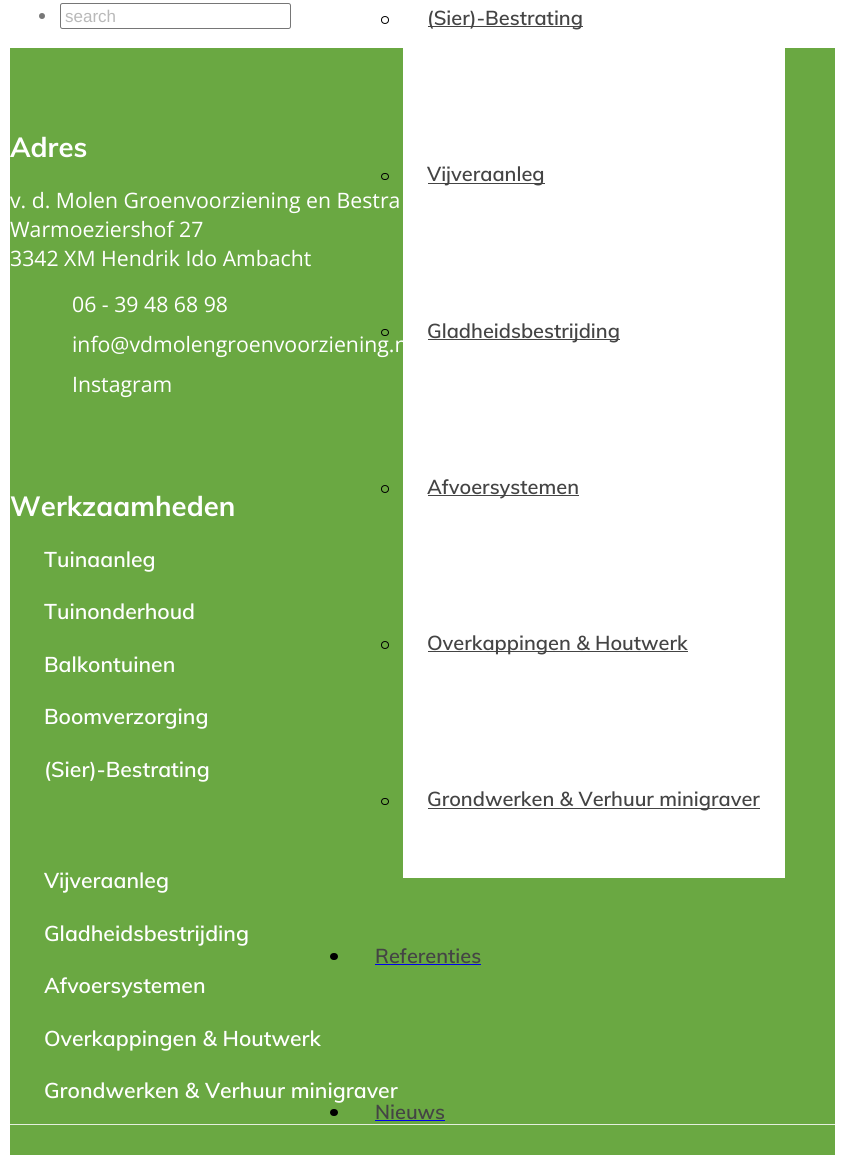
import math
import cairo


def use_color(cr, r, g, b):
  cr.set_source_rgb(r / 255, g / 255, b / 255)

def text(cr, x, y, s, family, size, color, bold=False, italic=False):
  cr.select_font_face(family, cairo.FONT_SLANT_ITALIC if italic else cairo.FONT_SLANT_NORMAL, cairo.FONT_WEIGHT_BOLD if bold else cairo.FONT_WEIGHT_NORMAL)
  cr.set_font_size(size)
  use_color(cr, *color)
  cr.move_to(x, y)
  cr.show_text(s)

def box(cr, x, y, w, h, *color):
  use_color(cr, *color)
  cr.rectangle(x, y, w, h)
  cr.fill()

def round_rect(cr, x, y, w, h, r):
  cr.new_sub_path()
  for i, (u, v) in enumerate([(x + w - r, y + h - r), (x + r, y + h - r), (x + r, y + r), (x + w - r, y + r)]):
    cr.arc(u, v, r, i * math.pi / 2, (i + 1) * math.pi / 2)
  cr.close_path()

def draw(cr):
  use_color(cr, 255, 255, 255)
  cr.paint()
  use_color(cr, 119, 119, 119)
  cr.arc(42, 16, 3, 0, 2 * math.pi)
  cr.fill()
  round_rect(cr, 60.5, 3.5, 230, 25, 2)
  use_color(cr, 118, 118, 118)
  cr.set_line_width(1)
  cr.stroke()
  box(cr, 10, 48, 825, 1107, 106, 168, 66)
  box(cr, 403, 48, 382, 830, 255, 255, 255)
  cr.arc(385, 20, 3.5, 0, 2 * math.pi)
  use_color(cr, 0, 0, 0)
  cr.stroke()
  box(cr, 428, 26, 155, 1, 68, 68, 68)
  round_rect(cr, 381.5, 173.5, 7, 6, 3)
  use_color(cr, 0, 0, 0)
  cr.stroke()
  box(cr, 428, 183, 117, 1, 68, 68, 68)
  round_rect(cr, 381.5, 329.5, 7, 6, 3)
  use_color(cr, 0, 0, 0)
  cr.stroke()
  box(cr, 428, 339, 192, 1, 68, 68, 68)
  cr.arc(385, 489, 3.5, 0, 2 * math.pi)
  use_color(cr, 0, 0, 0)
  cr.stroke()
  box(cr, 428, 495, 151, 1, 68, 68, 68)
  cr.arc(385, 645, 3.5, 0, 2 * math.pi)
  use_color(cr, 0, 0, 0)
  cr.stroke()
  box(cr, 428, 651, 260, 1, 68, 68, 68)
  round_rect(cr, 381.5, 798.5, 7, 6, 3)
  use_color(cr, 0, 0, 0)
  cr.stroke()
  box(cr, 428, 808, 332, 1, 68, 68, 68)
  use_color(cr, 0, 0, 0)
  round_rect(cr, 330, 953, 8, 7, 3.5)
  cr.fill()
  box(cr, 375, 964, 106, 1, 0, 0, 238)
  use_color(cr, 0, 0, 0)
  round_rect(cr, 330, 1109, 8, 7, 3.5)
  cr.fill()
  box(cr, 375, 1120, 70, 1, 0, 0, 238)
  box(cr, 10, 1124, 825, 1, 228, 239, 221)
  text(cr, 65, 22, "search", "Liberation Sans", 17, (185, 185, 185))
  text(cr, 427, 25, "(Sier)-Bestrating", "Muli SemiBold", 20, (68, 68, 68))
  text(cr, 427, 181, "Vijveraanleg", "Muli SemiBold", 20, (68, 68, 68))
  text(cr, 427, 338, "Gladheidsbestrijding", "Muli SemiBold", 20, (68, 68, 68))
  text(cr, 427, 494, "Afvoersystemen", "Muli SemiBold", 20, (68, 68, 68))
  text(cr, 427, 650, "Overkappingen & Houtwerk", "Muli SemiBold", 20, (68, 68, 68))
  text(cr, 427, 806, "Grondwerken & Verhuur minigraver", "Muli SemiBold", 20, (68, 68, 68))
  text(cr, 375, 963, "Referenties", "Muli SemiBold", 20, (68, 68, 68))
  text(cr, 375, 1119, "Nieuws", "Muli SemiBold", 20, (68, 68, 68))
  text(cr, 10, 157, "Adres", "Muli", 27.5, (255, 255, 255), bold=True)
  text(cr, 10, 208, "v. d. Molen Groenvoorziening en Bestra", "Open Sans", 21.25, (255, 255, 255))
  text(cr, 10, 237, "Warmoeziershof 27", "Open Sans", 21.25, (255, 255, 255))
  text(cr, 10, 266, "3342 XM Hendrik Ido Ambacht", "Open Sans", 21.25, (255, 255, 255))
  text(cr, 72, 312, "06 - 39 48 68 98", "Open Sans", 21.25, (255, 255, 255))
  text(cr, 72, 352, "info@vdmolengroenvoorziening.n", "Open Sans", 21.25, (255, 255, 255))
  text(cr, 72, 392, "Instagram", "Open Sans", 21.25, (255, 255, 255))
  text(cr, 10, 516, "Werkzaamheden", "Muli", 27.5, (255, 255, 255), bold=True)
  text(cr, 44, 567, "Tuinaanleg", "Muli SemiBold", 21.25, (255, 255, 255))
  text(cr, 44, 619, "Tuinonderhoud", "Muli SemiBold", 21.25, (255, 255, 255))
  text(cr, 44, 672, "Balkontuinen", "Muli SemiBold", 21.25, (255, 255, 255))
  text(cr, 44, 724, "Boomverzorging", "Muli SemiBold", 21.25, (255, 255, 255))
  text(cr, 44, 777, "(Sier)-Bestrating", "Muli SemiBold", 21.25, (255, 255, 255))
  text(cr, 44, 888, "Vijveraanleg", "Muli SemiBold", 21.25, (255, 255, 255))
  text(cr, 44, 941, "Gladheidsbestrijding", "Muli SemiBold", 21.25, (255, 255, 255))
  text(cr, 44, 993, "Afvoersystemen", "Muli SemiBold", 21.25, (255, 255, 255))
  text(cr, 44, 1046, "Overkappingen & Houtwerk", "Muli SemiBold", 21.25, (255, 255, 255))
  text(cr, 44, 1098, "Grondwerken & Verhuur minigraver", "Muli SemiBold", 21.25, (255, 255, 255))


surface = cairo.ImageSurface(cairo.FORMAT_RGB24, 845, 1155)
cr = cairo.Context(surface)
options = cairo.FontOptions()
options.set_hint_metrics(cairo.HINT_METRICS_OFF)
options.set_hint_style(cairo.HINT_STYLE_NONE)
cr.set_font_options(options)
cr.set_miter_limit(4)
draw(cr)
surface.write_to_png("out.png")
